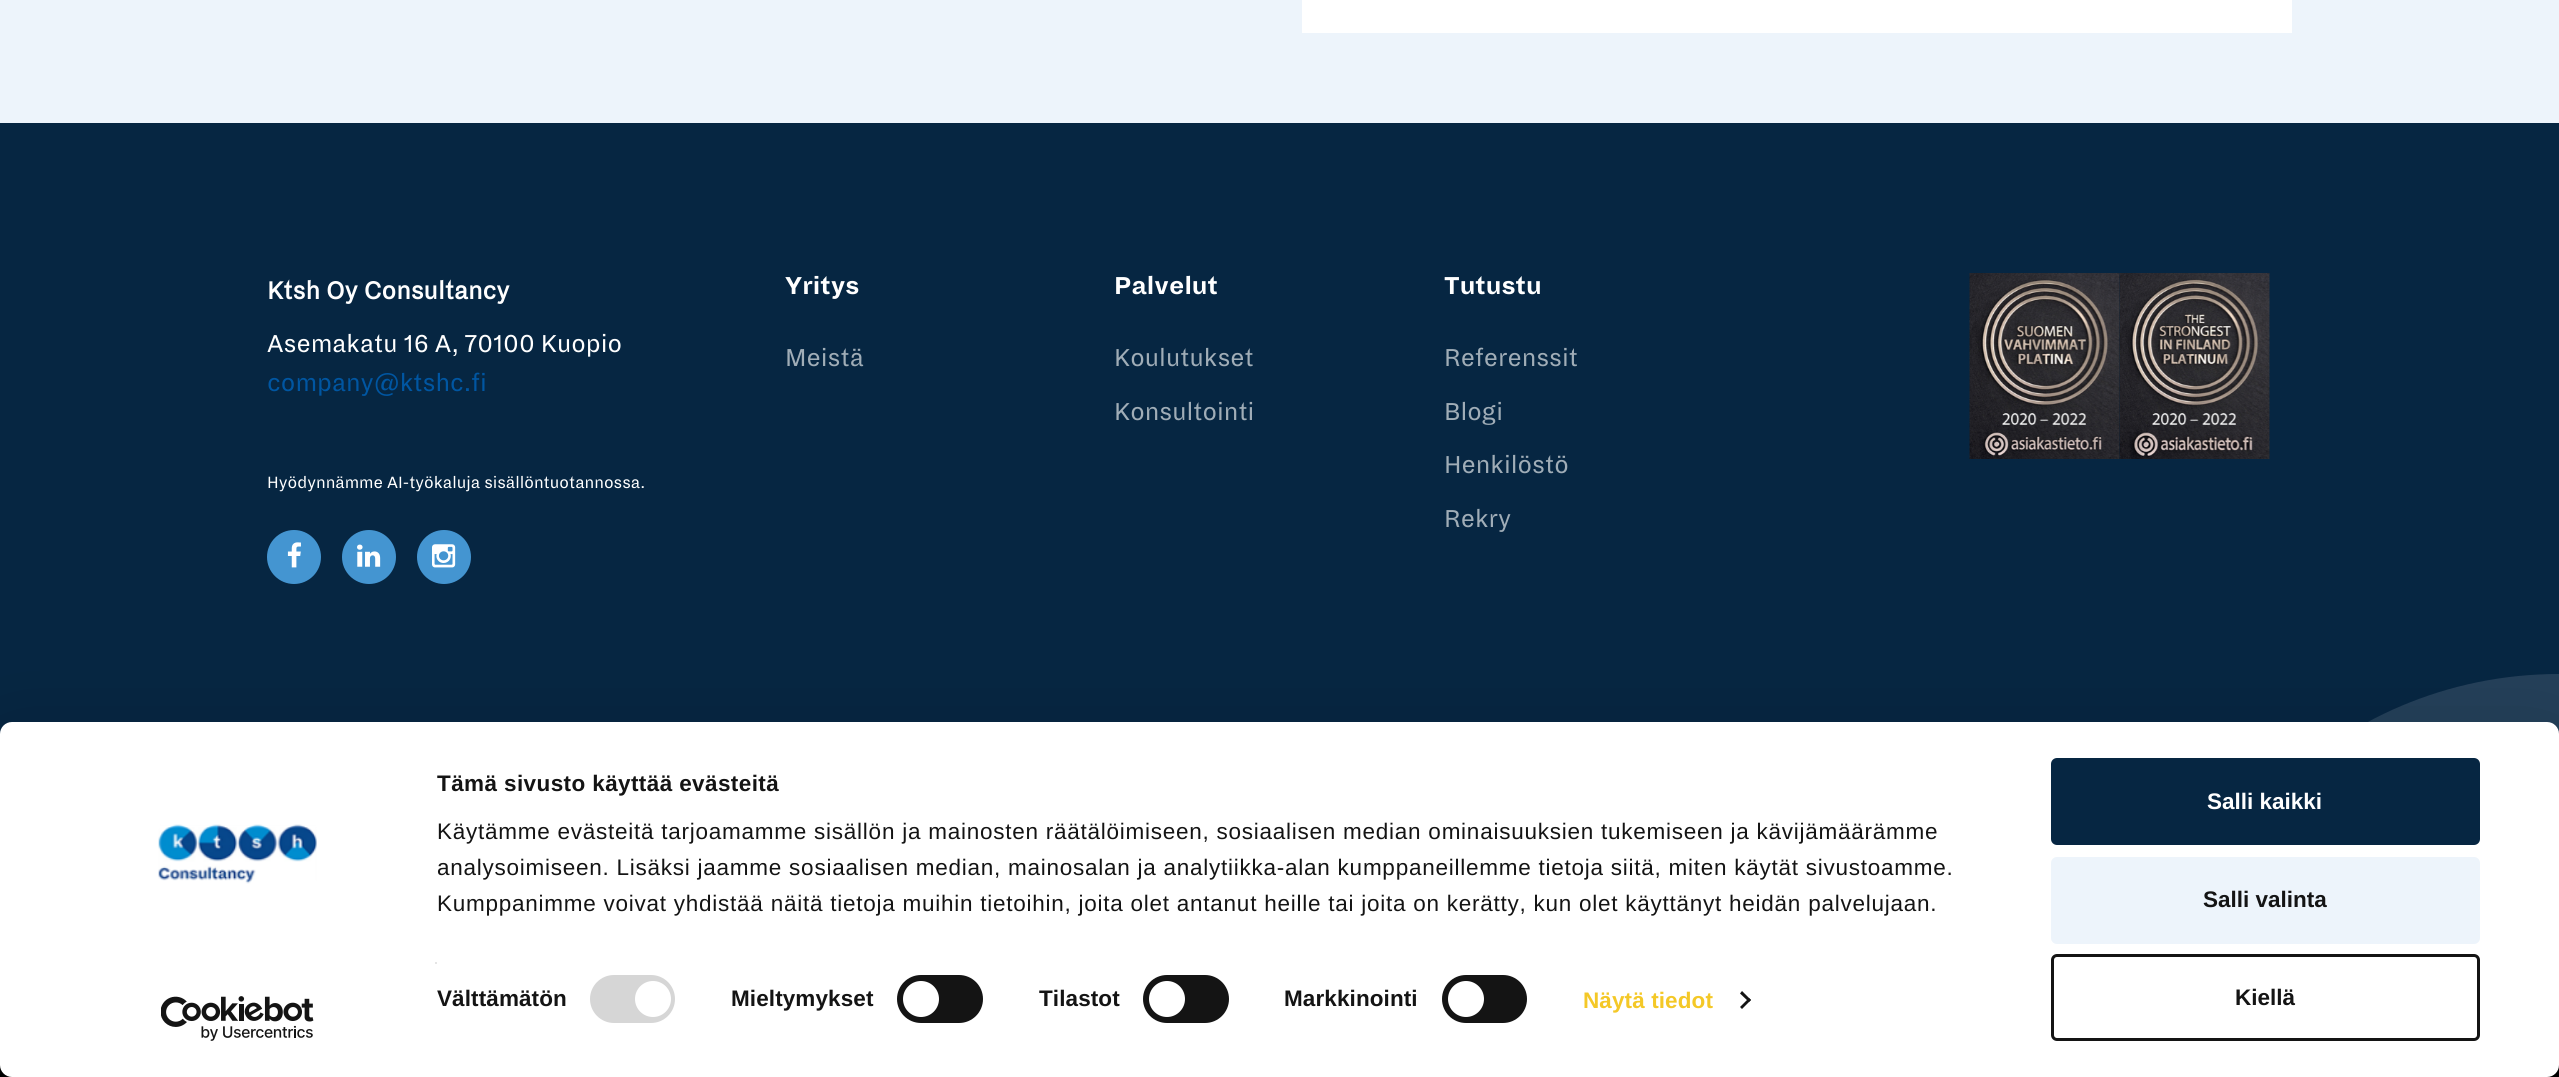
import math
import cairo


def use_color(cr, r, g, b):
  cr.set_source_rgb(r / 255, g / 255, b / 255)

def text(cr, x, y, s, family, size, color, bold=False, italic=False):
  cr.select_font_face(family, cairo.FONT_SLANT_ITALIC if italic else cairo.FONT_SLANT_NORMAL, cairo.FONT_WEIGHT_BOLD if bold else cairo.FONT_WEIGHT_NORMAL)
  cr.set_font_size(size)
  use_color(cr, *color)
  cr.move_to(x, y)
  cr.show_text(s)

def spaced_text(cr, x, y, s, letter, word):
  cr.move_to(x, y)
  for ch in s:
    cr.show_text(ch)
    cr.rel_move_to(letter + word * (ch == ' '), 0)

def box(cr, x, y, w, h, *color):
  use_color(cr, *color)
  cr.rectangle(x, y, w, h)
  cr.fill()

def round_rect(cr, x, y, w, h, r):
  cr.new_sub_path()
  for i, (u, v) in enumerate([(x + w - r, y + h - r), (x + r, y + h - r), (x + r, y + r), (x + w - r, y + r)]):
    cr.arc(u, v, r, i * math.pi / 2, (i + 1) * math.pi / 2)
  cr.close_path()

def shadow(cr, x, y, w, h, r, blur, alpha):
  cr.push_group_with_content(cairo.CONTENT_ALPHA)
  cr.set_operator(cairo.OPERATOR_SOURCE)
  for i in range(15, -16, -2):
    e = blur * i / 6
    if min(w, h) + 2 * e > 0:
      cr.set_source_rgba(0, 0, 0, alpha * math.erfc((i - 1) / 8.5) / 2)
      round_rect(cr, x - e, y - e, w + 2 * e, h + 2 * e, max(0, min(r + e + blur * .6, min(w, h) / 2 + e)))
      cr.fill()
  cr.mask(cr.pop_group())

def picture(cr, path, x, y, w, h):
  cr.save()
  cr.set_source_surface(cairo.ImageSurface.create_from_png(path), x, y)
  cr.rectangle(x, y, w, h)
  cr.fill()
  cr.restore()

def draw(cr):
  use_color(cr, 237, 244, 251)
  cr.paint()
  box(cr, 1302, 0, 990, 33, 255, 255, 255)
  box(cr, 0, 123, 2559, 611, 6, 38, 66)
  use_color(cr, 68, 149, 209)
  cr.arc(294, 557, 27, 0, 2 * math.pi)
  cr.fill()
  picture(cr, "img_01.png", 287, 542, 14, 26)
  cr.arc(369, 557, 27, 0, 2 * math.pi)
  cr.fill()
  picture(cr, "img_02.png", 357, 544, 24, 23)
  cr.arc(444, 557, 27, 0, 2 * math.pi)
  cr.fill()
  picture(cr, "img_03.png", 432, 544, 24, 24)
  picture(cr, "img_04.png", 1969, 273, 151, 186)
  picture(cr, "img_05.png", 2119, 273, 151, 186)
  use_color(cr, 36, 64, 89)
  cr.new_path()
  cr.move_to(2559, 674)
  cr.line_to(2559, 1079)
  cr.line_to(2154, 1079)
  cr.curve_to(2154, 855.5, 2335.5, 674, 2559, 674)
  cr.close_path()
  cr.fill()
  box(cr, 0, 1065, 2559, 12, 0, 0, 0)
  use_color(cr, 0, 0, 0)
  shadow(cr, 0, 767, 2559, 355, 12, 52.5, 0.3)
  use_color(cr, 255, 255, 255)
  round_rect(cr, 0, 722, 2559, 355, 12)
  cr.fill()
  picture(cr, "img_06.png", 158, 824, 159, 60)
  picture(cr, "img_07.png", 161, 996, 153, 45)
  box(cr, 435, 962, 2, 2, 229, 229, 229)
  use_color(cr, 214, 214, 214)
  round_rect(cr, 590, 975, 85, 48, 24)
  cr.fill()
  use_color(cr, 255, 255, 255)
  cr.arc(653, 999, 18, 0, 2 * math.pi)
  cr.fill()
  use_color(cr, 20, 20, 20)
  round_rect(cr, 897, 975, 86, 48, 24)
  cr.fill()
  use_color(cr, 255, 255, 255)
  cr.arc(921, 999, 18, 0, 2 * math.pi)
  cr.fill()
  use_color(cr, 20, 20, 20)
  round_rect(cr, 1143, 975, 86, 48, 24)
  cr.fill()
  use_color(cr, 255, 255, 255)
  cr.arc(1167, 999, 18, 0, 2 * math.pi)
  cr.fill()
  use_color(cr, 20, 20, 20)
  round_rect(cr, 1442, 975, 85, 48, 24)
  cr.fill()
  use_color(cr, 255, 255, 255)
  cr.arc(1466, 999, 18, 0, 2 * math.pi)
  cr.fill()
  use_color(cr, 20, 20, 20)
  cr.new_path()
  cr.move_to(1742, 991)
  cr.line_to(1751, 1000)
  cr.line_to(1749, 1002)
  cr.line_to(1740, 993.5)
  cr.close_path()
  cr.fill()
  cr.new_path()
  cr.move_to(1749, 998)
  cr.line_to(1751, 1000)
  cr.line_to(1742, 1009)
  cr.line_to(1740, 1007)
  cr.close_path()
  cr.fill()
  use_color(cr, 6, 38, 66)
  round_rect(cr, 2052.5, 759.5, 426, 84, 4.5)
  cr.fill_preserve()
  cr.set_line_width(3)
  cr.stroke()
  use_color(cr, 237, 244, 251)
  round_rect(cr, 2052.5, 858.5, 426, 84, 4.5)
  cr.fill_preserve()
  cr.stroke()
  round_rect(cr, 2052.5, 955.5, 426, 84, 4.5)
  use_color(cr, 20, 20, 20)
  cr.stroke()
  text(cr, 267, 299, "Ktsh Oy Consultancy", "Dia", 27, (255, 255, 255), bold=True)
  text(cr, 267, 352, "Asemakatu 16 A, 70100 Kuopio", "Dia", 27, (255, 255, 255))
  text(cr, 267, 391, "company@ktshc.fi", "Dia", 27, (0, 86, 162))
  text(cr, 267, 488, "Hyödynnämme AI-työkaluja sisällöntuotannossa.", "Dia", 18, (255, 255, 255))
  text(cr, 785, 294, "Yritys", "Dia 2", 27, (255, 255, 255), bold=True)
  text(cr, 785, 366, "Meistä", "Dia", 27, (160, 173, 183))
  text(cr, 1114, 294, "Palvelut", "Dia 2", 27, (255, 255, 255), bold=True)
  text(cr, 1114, 366, "Koulutukset", "Dia", 27, (160, 173, 183))
  text(cr, 1114, 420, "Konsultointi", "Dia", 27, (160, 173, 183))
  text(cr, 1444, 294, "Tutustu", "Dia 2", 27, (255, 255, 255), bold=True)
  text(cr, 1444, 366, "Referenssit", "Dia", 27, (160, 173, 183))
  text(cr, 1444, 420, "Blogi", "Dia", 27, (160, 173, 183))
  text(cr, 1444, 473, "Henkilöstö", "Dia", 27, (160, 173, 183))
  text(cr, 1444, 527, "Rekry", "Dia", 27, (160, 173, 183))
  cr.select_font_face("Liberation Sans", cairo.FONT_SLANT_NORMAL, cairo.FONT_WEIGHT_BOLD)
  cr.set_font_size(22.5)
  use_color(cr, 20, 20, 20)
  spaced_text(cr, 437, 791, "Tämä sivusto käyttää evästeitä", 0.4, 0)
  cr.select_font_face("Liberation Sans")
  spaced_text(cr, 437, 839, "Käytämme evästeitä tarjoamamme sisällön ja mainosten räätälöimiseen, sosiaalisen median ominaisuuksien tukemiseen ja kävijämäärämme", 0.75, 0)
  spaced_text(cr, 437, 875, "analysoimiseen. Lisäksi jaamme sosiaalisen median, mainosalan ja analytiikka-alan kumppaneillemme tietoja siitä, miten käytät sivustoamme.", 0.75, 0)
  spaced_text(cr, 437, 911, "Kumppanimme voivat yhdistää näitä tietoja muihin tietoihin, joita olet antanut heille tai joita on kerätty, kun olet käyttänyt heidän palvelujaan.", 0.75, 0)
  cr.select_font_face("Liberation Sans", cairo.FONT_SLANT_NORMAL, cairo.FONT_WEIGHT_BOLD)
  spaced_text(cr, 437, 1006, "Välttämätön", 0.1, 0)
  spaced_text(cr, 731, 1006, "Mieltymykset", 0.1, 0)
  spaced_text(cr, 1039, 1006, "Tilastot", 0.1, 0)
  spaced_text(cr, 1284, 1006, "Markkinointi", 0.1, 0)
  use_color(cr, 244, 200, 39)
  spaced_text(cr, 1583, 1008, "Näytä tiedot", 0.1, 0)
  text(cr, 2207, 809, "Salli kaikki", "Liberation Sans", 22.5, (255, 255, 255), bold=True)
  text(cr, 2203, 907, "Salli valinta", "Liberation Sans", 22.5, (20, 20, 20), bold=True)
  text(cr, 2235, 1005, "Kiellä", "Liberation Sans", 22.5, (20, 20, 20), bold=True)


surface = cairo.ImageSurface(cairo.FORMAT_RGB24, 2559, 1077)
cr = cairo.Context(surface)
options = cairo.FontOptions()
options.set_hint_metrics(cairo.HINT_METRICS_OFF)
options.set_hint_style(cairo.HINT_STYLE_NONE)
cr.set_font_options(options)
cr.set_miter_limit(4)
draw(cr)
surface.write_to_png("out.png")
